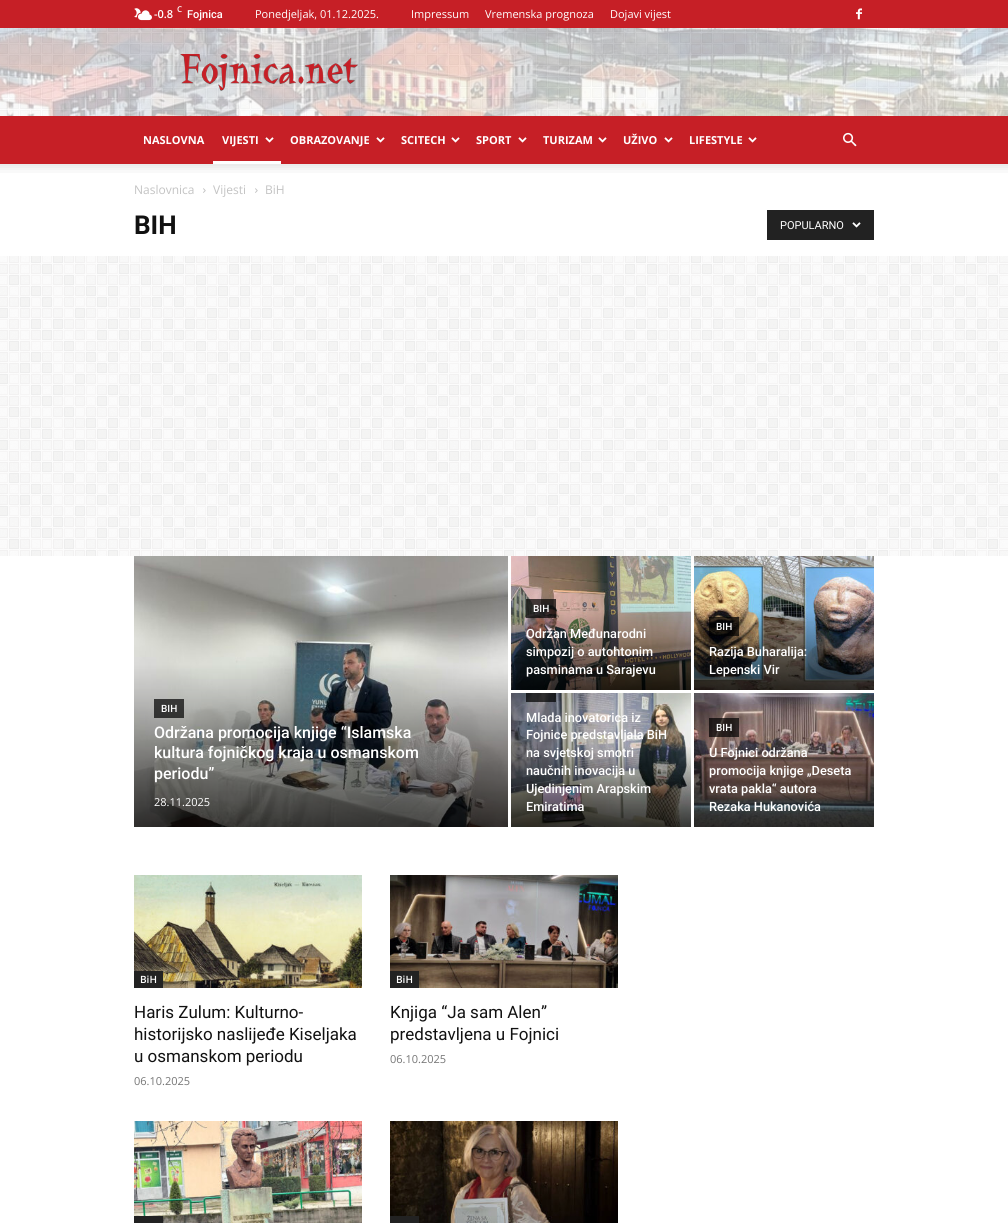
import math
import cairo


def use_color(cr, r, g, b):
  cr.set_source_rgb(r / 255, g / 255, b / 255)

def text(cr, x, y, s, family, size, color, bold=False, italic=False):
  cr.select_font_face(family, cairo.FONT_SLANT_ITALIC if italic else cairo.FONT_SLANT_NORMAL, cairo.FONT_WEIGHT_BOLD if bold else cairo.FONT_WEIGHT_NORMAL)
  cr.set_font_size(size)
  use_color(cr, *color)
  cr.move_to(x, y)
  cr.show_text(s)

def box(cr, x, y, w, h, *color):
  use_color(cr, *color)
  cr.rectangle(x, y, w, h)
  cr.fill()

def picture(cr, path, x, y, w, h):
  cr.save()
  cr.set_source_surface(cairo.ImageSurface.create_from_png(path), x, y)
  cr.rectangle(x, y, w, h)
  cr.fill()
  cr.restore()

def draw(cr):
  use_color(cr, 255, 255, 255)
  cr.paint()
  picture(cr, "img_01.png", 0, 28, 1008, 528)
  box(cr, 0, 0, 1008, 28, 198, 31, 38)
  picture(cr, "img_02.png", 134, 8, 18, 13)
  picture(cr, "img_03.png", 856, 8, 6, 12)
  picture(cr, "img_04.png", 0, 28, 1008, 88)
  picture(cr, "img_05.png", 180, 53, 178, 38)
  box(cr, 0, 116, 1008, 48, 198, 31, 38)
  picture(cr, "img_06.png", 265, 137, 9, 6)
  box(cr, 213, 161, 68, 3, 255, 255, 255)
  picture(cr, "img_06.png", 376, 137, 9, 6)
  picture(cr, "img_06.png", 451, 137, 9, 6)
  picture(cr, "img_06.png", 518, 137, 9, 6)
  picture(cr, "img_06.png", 598, 137, 9, 6)
  picture(cr, "img_06.png", 664, 137, 9, 6)
  picture(cr, "img_06.png", 748, 137, 9, 6)
  picture(cr, "img_07.png", 843, 132, 14, 15)
  box(cr, 0, 164, 1008, 92, 255, 255, 255)
  picture(cr, "img_08.png", 0, 164, 1008, 9)
  picture(cr, "img_09.png", 203, 188, 3, 5)
  picture(cr, "img_09.png", 255, 188, 3, 5)
  box(cr, 767, 210, 107, 30, 34, 34, 34)
  picture(cr, "img_10.png", 852, 222, 9, 6)
  picture(cr, "img_11.png", 134, 556, 374, 271)
  cr.set_source_rgba(0, 0, 0, 0.7)
  cr.rectangle(154, 699, 30, 19)
  cr.fill()
  picture(cr, "img_12.png", 511, 556, 180, 134)
  cr.rectangle(526, 599, 30, 19)
  cr.fill()
  picture(cr, "img_13.png", 694, 556, 180, 134)
  cr.rectangle(709, 617, 30, 19)
  cr.fill()
  picture(cr, "img_14.png", 511, 693, 180, 134)
  cr.rectangle(526, 693, 30, 9)
  cr.fill()
  picture(cr, "img_15.png", 694, 693, 180, 134)
  cr.rectangle(709, 718, 30, 19)
  cr.fill()
  picture(cr, "img_16.png", 134, 875, 228, 113)
  box(cr, 134, 971, 29, 17, 34, 34, 34)
  picture(cr, "img_17.png", 390, 875, 228, 113)
  box(cr, 390, 971, 29, 17, 34, 34, 34)
  picture(cr, "img_18.png", 134, 1121, 228, 102)
  box(cr, 134, 1216, 29, 7, 34, 34, 34)
  picture(cr, "img_19.png", 390, 1121, 228, 102)
  box(cr, 390, 1216, 29, 7, 34, 34, 34)
  text(cr, 154, 18, "-0.8", "Open Sans SemiBold", 11, (255, 255, 255))
  text(cr, 177, 12, "C", "Open Sans SemiBold", 8, (255, 255, 255))
  text(cr, 187, 18, "Fojnica", "Roboto Medium", 11, (255, 255, 255))
  text(cr, 255, 18, "Ponedjeljak, 01.12.2025.", "Open Sans", 11, (255, 255, 255))
  text(cr, 411, 18, "Impressum", "Open Sans", 11, (255, 255, 255))
  text(cr, 485, 18, "Vremenska prognoza", "Open Sans", 11, (255, 255, 255))
  text(cr, 610, 18, "Dojavi vijest", "Open Sans", 11, (255, 255, 255))
  text(cr, 143, 144, "NASLOVNA", "Open Sans", 11, (255, 255, 255), bold=True)
  text(cr, 222, 144, "VIJESTI", "Open Sans", 11, (255, 255, 255), bold=True)
  text(cr, 290, 144, "OBRAZOVANJE", "Open Sans", 11, (255, 255, 255), bold=True)
  text(cr, 401, 144, "SCITECH", "Open Sans", 11, (255, 255, 255), bold=True)
  text(cr, 476, 144, "SPORT", "Open Sans", 11, (255, 255, 255), bold=True)
  text(cr, 543, 144, "TURIZAM", "Open Sans", 11, (255, 255, 255), bold=True)
  text(cr, 623, 144, "UŽIVO", "Open Sans", 11, (255, 255, 255), bold=True)
  text(cr, 689, 144, "LIFESTYLE", "Open Sans", 11, (255, 255, 255), bold=True)
  text(cr, 134, 194, "Naslovnica", "Open Sans", 12, (195, 195, 195))
  text(cr, 213, 194, "Vijesti", "Open Sans", 12, (195, 195, 195))
  text(cr, 265, 194, "BiH", "Open Sans", 12, (195, 195, 195))
  text(cr, 134, 234, "BIH", "Roboto", 26, (17, 17, 17), bold=True)
  text(cr, 780, 229, "POPULARNO", "Roboto", 11, (255, 255, 255))
  text(cr, 161, 712, "BIH", "Roboto Medium", 10, (255, 255, 255))
  text(cr, 154, 738, "Održana promocija knjige “Islamska", "Roboto Medium", 16, (255, 255, 255))
  text(cr, 154, 758, "kultura fojničkog kraja u osmanskom", "Roboto Medium", 16, (255, 255, 255))
  text(cr, 154, 779, "periodu”", "Roboto Medium", 16, (255, 255, 255))
  text(cr, 154, 806, "28.11.2025", "Open Sans", 11, (255, 255, 255))
  text(cr, 533, 612, "BIH", "Roboto Medium", 10, (255, 255, 255))
  text(cr, 526, 638, "Održan Međunarodni", "Roboto Medium", 12.75, (255, 255, 255))
  text(cr, 526, 656, "simpozij o autohtonim", "Roboto Medium", 12.75, (255, 255, 255))
  text(cr, 526, 674, "pasminama u Sarajevu", "Roboto Medium", 12.75, (255, 255, 255))
  text(cr, 716, 630, "BIH", "Roboto Medium", 10, (255, 255, 255))
  text(cr, 709, 656, "Razija Buharalija:", "Roboto Medium", 12.75, (255, 255, 255))
  text(cr, 709, 674, "Lepenski Vir", "Roboto Medium", 12.75, (255, 255, 255))
  text(cr, 526, 722, "Mlada inovatorica iz", "Roboto Medium", 12.75, (255, 255, 255))
  text(cr, 526, 739, "Fojnice predstavljala BiH", "Roboto Medium", 12.75, (255, 255, 255))
  text(cr, 526, 757, "na svjetskoj smotri", "Roboto Medium", 12.75, (255, 255, 255))
  text(cr, 526, 775, "naučnih inovacija u", "Roboto Medium", 12.75, (255, 255, 255))
  text(cr, 526, 793, "Ujedinjenim Arapskim", "Roboto Medium", 12.75, (255, 255, 255))
  text(cr, 526, 811, "Emiratima", "Roboto Medium", 12.75, (255, 255, 255))
  text(cr, 716, 731, "BIH", "Roboto Medium", 10, (255, 255, 255))
  text(cr, 709, 757, "U Fojnici održana", "Roboto Medium", 12.75, (255, 255, 255))
  text(cr, 709, 775, "promocija knjige „Deseta", "Roboto Medium", 12.75, (255, 255, 255))
  text(cr, 709, 793, "vrata pakla“ autora", "Roboto Medium", 12.75, (255, 255, 255))
  text(cr, 709, 811, "Rezaka Hukanovića", "Roboto Medium", 12.75, (255, 255, 255))
  text(cr, 140, 983, "BiH", "Open Sans SemiBold", 10, (255, 255, 255))
  text(cr, 134, 1018, "Haris Zulum: Kulturno-", "Roboto", 17, (17, 17, 17))
  text(cr, 134, 1040, "historijsko naslijeđe Kiseljaka", "Roboto", 17, (17, 17, 17))
  text(cr, 134, 1062, "u osmanskom periodu", "Roboto", 17, (17, 17, 17))
  text(cr, 134, 1085, "06.10.2025", "Open Sans", 11, (118, 118, 118))
  text(cr, 396, 983, "BiH", "Open Sans SemiBold", 10, (255, 255, 255))
  text(cr, 390, 1018, "Knjiga “Ja sam Alen”", "Roboto", 17, (17, 17, 17))
  text(cr, 390, 1040, "predstavljena u Fojnici", "Roboto", 17, (17, 17, 17))
  text(cr, 390, 1063, "06.10.2025", "Open Sans", 11, (118, 118, 118))


surface = cairo.ImageSurface(cairo.FORMAT_RGB24, 1008, 1223)
cr = cairo.Context(surface)
options = cairo.FontOptions()
options.set_hint_metrics(cairo.HINT_METRICS_OFF)
options.set_hint_style(cairo.HINT_STYLE_NONE)
cr.set_font_options(options)
cr.set_miter_limit(4)
draw(cr)
surface.write_to_png("out.png")
